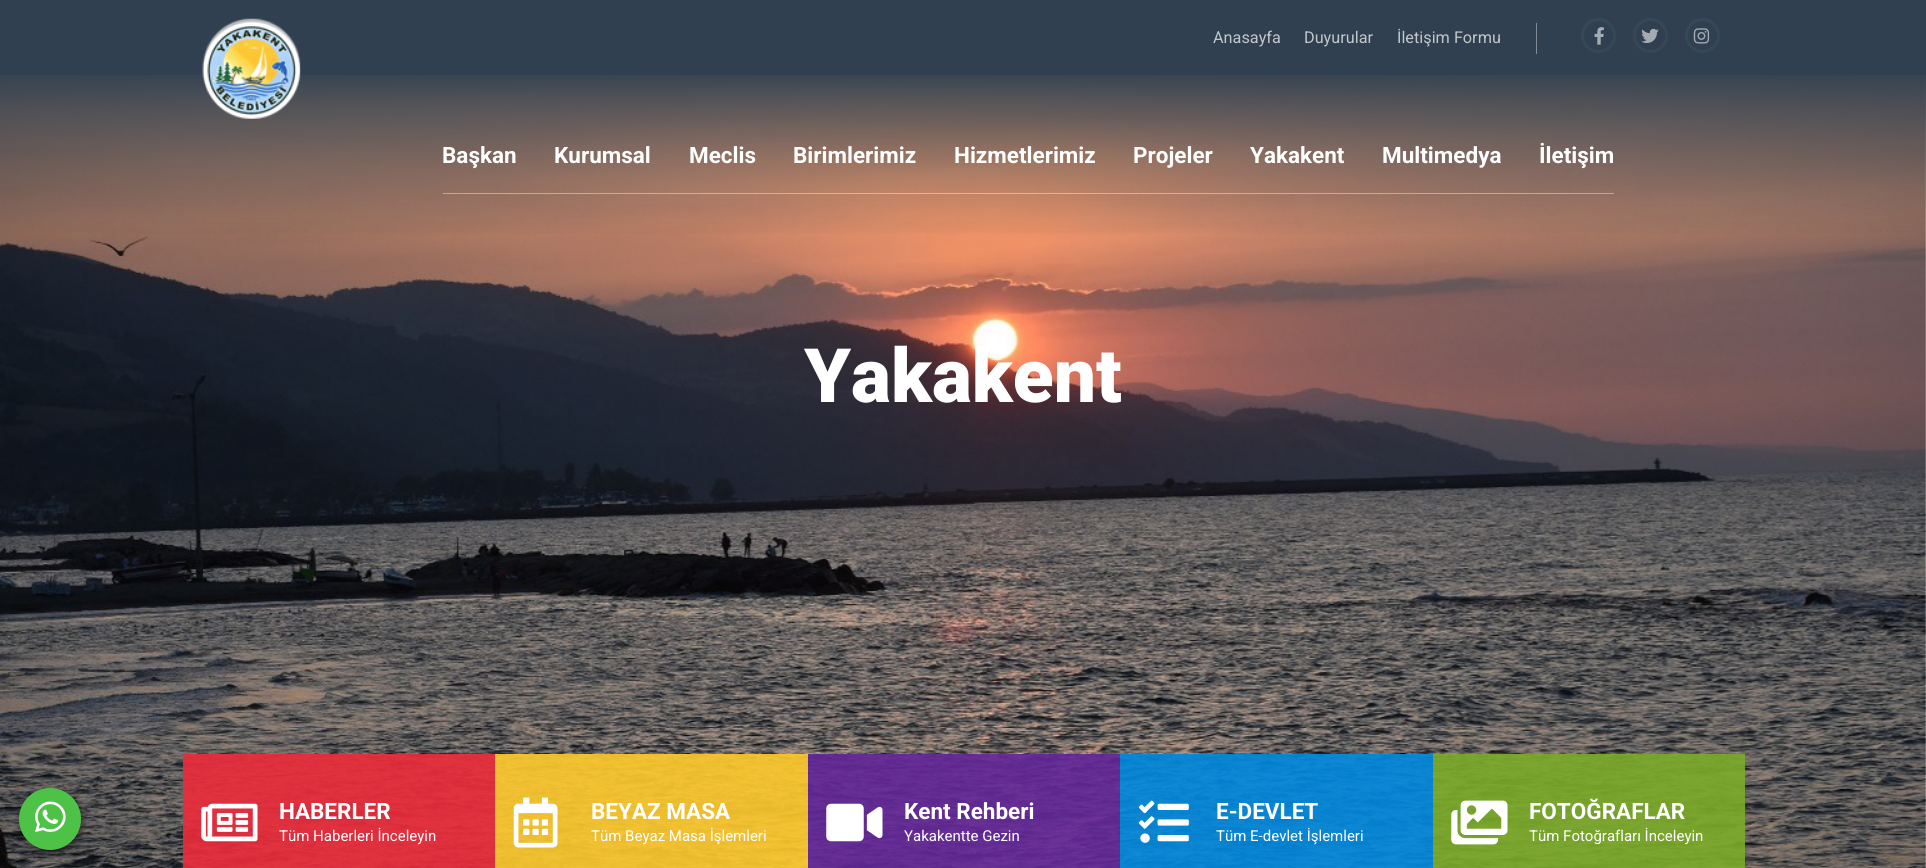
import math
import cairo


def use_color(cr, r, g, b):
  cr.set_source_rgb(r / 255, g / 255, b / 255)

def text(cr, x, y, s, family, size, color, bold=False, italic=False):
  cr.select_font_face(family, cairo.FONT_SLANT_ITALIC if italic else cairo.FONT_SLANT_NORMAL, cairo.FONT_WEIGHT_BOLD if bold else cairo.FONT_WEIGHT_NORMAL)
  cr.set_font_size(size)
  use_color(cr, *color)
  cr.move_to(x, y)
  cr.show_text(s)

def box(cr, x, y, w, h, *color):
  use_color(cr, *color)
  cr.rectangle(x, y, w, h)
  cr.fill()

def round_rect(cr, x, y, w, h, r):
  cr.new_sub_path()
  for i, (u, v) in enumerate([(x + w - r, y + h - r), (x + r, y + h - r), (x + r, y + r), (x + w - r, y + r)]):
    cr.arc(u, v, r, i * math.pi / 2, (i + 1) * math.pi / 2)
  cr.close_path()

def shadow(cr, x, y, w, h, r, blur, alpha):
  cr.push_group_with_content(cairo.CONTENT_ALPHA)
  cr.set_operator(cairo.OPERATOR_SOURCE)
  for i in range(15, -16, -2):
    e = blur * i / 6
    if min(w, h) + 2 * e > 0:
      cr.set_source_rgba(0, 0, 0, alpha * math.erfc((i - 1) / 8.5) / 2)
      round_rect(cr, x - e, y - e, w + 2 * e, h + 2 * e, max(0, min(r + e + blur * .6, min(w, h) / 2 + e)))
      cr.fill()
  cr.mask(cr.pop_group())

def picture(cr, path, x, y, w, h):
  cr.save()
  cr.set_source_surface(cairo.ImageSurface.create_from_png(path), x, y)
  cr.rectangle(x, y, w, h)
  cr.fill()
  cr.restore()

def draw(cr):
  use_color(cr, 255, 255, 255)
  cr.paint()
  picture(cr, "img_06.png", 0, 75, 1926, 793)
  use_color(cr, 0, 0, 0)
  shadow(cr, 21, 790, 63, 63, 31.5, 4, 0.4)
  use_color(cr, 77, 194, 71)
  cr.arc(50, 819, 31, 0, 2 * math.pi)
  cr.fill()
  picture(cr, "img_01.png", 35, 801, 31, 32)
  box(cr, 0, 0, 1926, 75, 48, 64, 80)
  box(cr, 1536, 23, 1, 31, 131, 140, 150)
  cr.arc(1598.5, 35.5, 16, 0, 2 * math.pi)
  use_color(cr, 54, 71, 88)
  cr.set_line_width(3)
  cr.stroke()
  picture(cr, "img_02.png", 1594, 27, 10, 18)
  cr.arc(1650.5, 35.5, 16, 0, 2 * math.pi)
  cr.stroke()
  picture(cr, "img_03.png", 1641, 28, 18, 15)
  cr.arc(1702.5, 35.5, 16, 0, 2 * math.pi)
  cr.stroke()
  picture(cr, "img_04.png", 1693, 28, 17, 16)
  gradient = cairo.LinearGradient(963, 75, 963, 238)
  gradient.add_color_stop_rgba(0, 0.188, 0.251, 0.314, 0.95)
  gradient.add_color_stop_rgba(1, 0.188, 0.251, 0.314, 0)
  cr.set_source(gradient)
  cr.rectangle(0, 75, 1926, 159)
  cr.fill()
  picture(cr, "img_05.png", 202, 18, 99, 101)
  cr.set_source_rgba(1, 1, 1, 0.4)
  cr.rectangle(443, 193, 1171, 1)
  cr.fill()
  cr.set_source_rgba(0.918, 0.169, 0.231, 0.91)
  cr.rectangle(183, 754, 312, 114)
  cr.fill()
  picture(cr, "img_07.png", 201, 803, 57, 39)
  cr.set_source_rgba(0.988, 0.788, 0.176, 0.91)
  cr.rectangle(495, 754, 313, 114)
  cr.fill()
  picture(cr, "img_08.png", 513, 797, 45, 51)
  cr.set_source_rgba(0.384, 0.153, 0.596, 0.91)
  cr.rectangle(808, 754, 312, 114)
  cr.fill()
  picture(cr, "img_09.png", 826, 803, 57, 39)
  cr.set_source_rgba(0.008, 0.533, 0.867, 0.91)
  cr.rectangle(1120, 754, 313, 114)
  cr.fill()
  picture(cr, "img_10.png", 1138, 800, 51, 43)
  cr.set_source_rgba(0.478, 0.667, 0.161, 0.91)
  cr.rectangle(1433, 754, 312, 114)
  cr.fill()
  picture(cr, "img_11.png", 1451, 800, 57, 45)
  text(cr, 1213, 43, "Anasayfa", "Roboto", 16.25, (193, 198, 203))
  text(cr, 1304, 43, "Duyurular", "Roboto", 16.25, (193, 198, 203))
  text(cr, 1397, 43, "İletişim Formu", "Roboto", 16.25, (193, 198, 203))
  text(cr, 442, 163, "Başkan", "Roboto", 22.5, (255, 255, 255), bold=True)
  text(cr, 554, 163, "Kurumsal", "Roboto", 22.5, (255, 255, 255), bold=True)
  text(cr, 689, 163, "Meclis", "Roboto", 22.5, (255, 255, 255), bold=True)
  text(cr, 793, 163, "Birimlerimiz", "Roboto", 22.5, (255, 255, 255), bold=True)
  text(cr, 954, 163, "Hizmetlerimiz", "Roboto", 22.5, (255, 255, 255), bold=True)
  text(cr, 1133, 163, "Projeler", "Roboto", 22.5, (255, 255, 255), bold=True)
  text(cr, 1250, 163, "Yakakent", "Roboto", 22.5, (255, 255, 255), bold=True)
  text(cr, 1382, 163, "Multimedya", "Roboto", 22.5, (255, 255, 255), bold=True)
  text(cr, 1539, 163, "İletişim", "Roboto", 22.5, (255, 255, 255), bold=True)
  text(cr, 804, 402, "Yakakent", "Roboto Black", 75, (255, 255, 255))
  text(cr, 279, 819, "HABERLER", "Roboto", 22.5, (255, 255, 255), bold=True)
  text(cr, 279, 841, "Tüm Haberleri İnceleyin", "Roboto", 15, (255, 255, 255))
  text(cr, 591, 819, "BEYAZ MASA", "Roboto", 22.5, (255, 255, 255), bold=True)
  text(cr, 591, 841, "Tüm Beyaz Masa İşlemleri", "Roboto", 15, (255, 255, 255))
  text(cr, 904, 819, "Kent Rehberi", "Roboto", 22.5, (255, 255, 255), bold=True)
  text(cr, 904, 841, "Yakakentte Gezin", "Roboto", 15, (255, 255, 255))
  text(cr, 1216, 819, "E-DEVLET", "Roboto", 22.5, (255, 255, 255), bold=True)
  text(cr, 1216, 841, "Tüm E-devlet İşlemleri", "Roboto", 15, (255, 255, 255))
  text(cr, 1529, 819, "FOTOĞRAFLAR", "Roboto", 22.5, (255, 255, 255), bold=True)
  text(cr, 1529, 841, "Tüm Fotoğrafları İnceleyin", "Roboto", 15, (255, 255, 255))


surface = cairo.ImageSurface(cairo.FORMAT_RGB24, 1926, 868)
cr = cairo.Context(surface)
options = cairo.FontOptions()
options.set_hint_metrics(cairo.HINT_METRICS_OFF)
options.set_hint_style(cairo.HINT_STYLE_NONE)
cr.set_font_options(options)
cr.set_miter_limit(4)
draw(cr)
surface.write_to_png("out.png")
